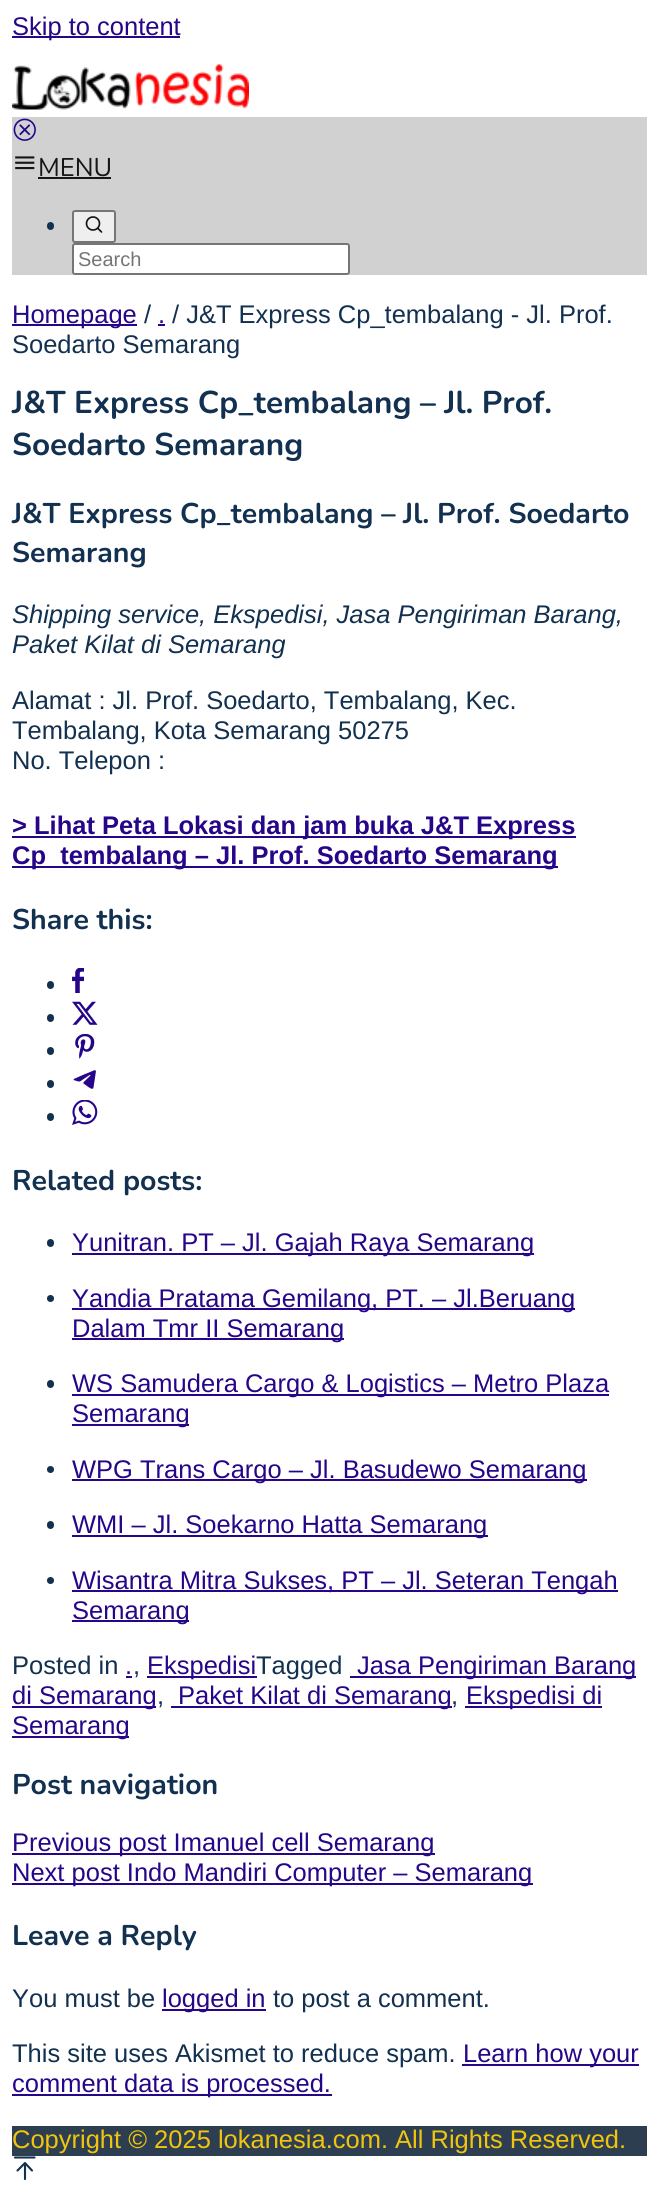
import math
import cairo


def use_color(cr, r, g, b):
  cr.set_source_rgb(r / 255, g / 255, b / 255)

def text(cr, x, y, s, family, size, color, bold=False, italic=False):
  cr.select_font_face(family, cairo.FONT_SLANT_ITALIC if italic else cairo.FONT_SLANT_NORMAL, cairo.FONT_WEIGHT_BOLD if bold else cairo.FONT_WEIGHT_NORMAL)
  cr.set_font_size(size)
  use_color(cr, *color)
  cr.move_to(x, y)
  cr.show_text(s)

def box(cr, x, y, w, h, *color):
  use_color(cr, *color)
  cr.rectangle(x, y, w, h)
  cr.fill()

def round_rect(cr, x, y, w, h, r):
  cr.new_sub_path()
  for i, (u, v) in enumerate([(x + w - r, y + h - r), (x + r, y + h - r), (x + r, y + r), (x + w - r, y + r)]):
    cr.arc(u, v, r, i * math.pi / 2, (i + 1) * math.pi / 2)
  cr.close_path()

def picture(cr, path, x, y, w, h):
  cr.save()
  cr.set_source_surface(cairo.ImageSurface.create_from_png(path), x, y)
  cr.rectangle(x, y, w, h)
  cr.fill()
  cr.restore()

def draw(cr):
  use_color(cr, 255, 255, 255)
  cr.paint()
  box(cr, 12, 36, 168, 2, 38, 5, 137)
  picture(cr, "img_01.png", 12, 64, 237, 46)
  box(cr, 12, 117, 635, 158, 209, 209, 209)
  picture(cr, "img_02.png", 13, 118, 23, 23)
  picture(cr, "img_03.png", 15, 156, 20, 14)
  box(cr, 38, 177, 73, 2, 22, 22, 22)
  use_color(cr, 18, 48, 79)
  round_rect(cr, 47, 222, 7, 8, 3.5)
  cr.fill()
  use_color(cr, 239, 239, 239)
  round_rect(cr, 73, 211, 42, 31, 2)
  cr.fill_preserve()
  use_color(cr, 118, 118, 118)
  cr.stroke()
  cr.arc(93, 223.5, 6.5, 0, 2 * math.pi)
  use_color(cr, 22, 22, 22)
  cr.set_line_width(1.7)
  cr.stroke()
  cr.new_path()
  cr.move_to(101.5, 232)
  cr.line_to(98, 228.5)
  cr.set_line_cap(cairo.LINE_CAP_ROUND)
  cr.set_line_join(cairo.LINE_JOIN_ROUND)
  cr.stroke()
  use_color(cr, 255, 255, 255)
  round_rect(cr, 73, 244, 276, 30, 2)
  cr.fill_preserve()
  use_color(cr, 118, 118, 118)
  cr.set_line_width(2)
  cr.set_line_cap(cairo.LINE_CAP_BUTT)
  cr.set_line_join(cairo.LINE_JOIN_MITER)
  cr.stroke()
  box(cr, 12, 324, 125, 2, 38, 5, 137)
  box(cr, 158, 324, 7, 2, 38, 5, 137)
  box(cr, 12, 836, 564, 2, 38, 5, 137)
  box(cr, 12, 866, 546, 2, 38, 5, 137)
  use_color(cr, 18, 48, 79)
  round_rect(cr, 47, 981, 7, 8, 3.5)
  cr.fill()
  picture(cr, "img_04.png", 72, 968, 12, 25)
  round_rect(cr, 47, 1014, 7, 8, 3.5)
  cr.fill()
  picture(cr, "img_05.png", 72, 1001, 26, 24)
  round_rect(cr, 47, 1047, 7, 8, 3.5)
  cr.fill()
  picture(cr, "img_06.png", 75, 1034, 20, 25)
  round_rect(cr, 47, 1080, 7, 8, 3.5)
  cr.fill()
  picture(cr, "img_07.png", 73, 1070, 23, 19)
  round_rect(cr, 47, 1113, 7, 8, 3.5)
  cr.fill()
  picture(cr, "img_08.png", 72, 1100, 26, 25)
  round_rect(cr, 47, 1239, 7, 8, 3.5)
  cr.fill()
  box(cr, 72, 1253, 462, 2, 38, 5, 137)
  use_color(cr, 18, 48, 79)
  cr.arc(50.5, 1298.5, 3.5, 0, 2 * math.pi)
  cr.fill()
  box(cr, 72, 1308, 503, 2, 38, 5, 137)
  box(cr, 72, 1338, 272, 2, 38, 5, 137)
  use_color(cr, 18, 48, 79)
  round_rect(cr, 47, 1380, 7, 8, 3.5)
  cr.fill()
  box(cr, 72, 1394, 537, 2, 38, 5, 137)
  box(cr, 72, 1424, 117, 2, 38, 5, 137)
  use_color(cr, 18, 48, 79)
  cr.arc(50.5, 1469.5, 3.5, 0, 2 * math.pi)
  cr.fill()
  box(cr, 72, 1479, 515, 2, 38, 5, 137)
  use_color(cr, 18, 48, 79)
  round_rect(cr, 47, 1521, 7, 8, 3.5)
  cr.fill()
  box(cr, 72, 1535, 416, 2, 38, 5, 137)
  use_color(cr, 18, 48, 79)
  cr.arc(50.5, 1580.5, 3.5, 0, 2 * math.pi)
  cr.fill()
  box(cr, 72, 1590, 546, 2, 38, 5, 137)
  box(cr, 72, 1620, 117, 2, 38, 5, 137)
  box(cr, 126, 1676, 6, 2, 38, 5, 137)
  box(cr, 147, 1676, 110, 2, 38, 5, 137)
  box(cr, 350, 1676, 286, 2, 38, 5, 137)
  box(cr, 12, 1706, 144, 2, 38, 5, 137)
  box(cr, 171, 1706, 281, 2, 38, 5, 137)
  box(cr, 465, 1706, 137, 2, 38, 5, 137)
  box(cr, 12, 1736, 117, 2, 38, 5, 137)
  box(cr, 12, 1853, 423, 2, 38, 5, 137)
  box(cr, 12, 1883, 521, 2, 38, 5, 137)
  box(cr, 162, 2009, 104, 2, 38, 5, 137)
  box(cr, 462, 2064, 177, 2, 38, 5, 137)
  box(cr, 12, 2094, 320, 2, 38, 5, 137)
  box(cr, 12, 2126, 635, 30, 44, 62, 80)
  cr.new_path()
  cr.move_to(25, 2179)
  cr.line_to(25, 2163)
  cr.move_to(17.5, 2170.5)
  cr.line_to(25, 2163)
  cr.line_to(32, 2170.5)
  cr.move_to(15, 2157.5)
  cr.line_to(34.5, 2157.5)
  use_color(cr, 18, 48, 79)
  cr.set_line_width(2.1)
  cr.set_line_cap(cairo.LINE_CAP_ROUND)
  cr.set_line_join(cairo.LINE_JOIN_ROUND)
  cr.stroke()
  text(cr, 12, 35, "Skip to content", "Liberation Sans", 25.5, (38, 5, 137))
  text(cr, 38, 176, "MENU", "Nunito", 25.5, (22, 22, 22))
  text(cr, 78, 266, "Search", "Liberation Sans", 20, (117, 117, 117))
  text(cr, 12, 323, "Homepage", "Liberation Sans", 25.5, (38, 5, 137))
  text(cr, 144, 323, "/", "Liberation Sans", 25.5, (18, 48, 79))
  text(cr, 158, 323, ".", "Liberation Sans", 25.5, (38, 5, 137))
  text(cr, 172, 323, "/ J&T Express Cp_tembalang - Jl. Prof.", "Liberation Sans", 25.5, (18, 48, 79))
  text(cr, 12, 353, "Soedarto Semarang", "Liberation Sans", 25.5, (18, 48, 79))
  text(cr, 12, 413, "J&T Express Cp_tembalang – Jl. Prof.", "Nunito", 31.5, (18, 48, 79), bold=True)
  text(cr, 12, 455, "Soedarto Semarang", "Nunito", 31.5, (18, 48, 79), bold=True)
  text(cr, 12, 523, "J&T Express Cp_tembalang – Jl. Prof. Soedarto", "Nunito", 28.5, (18, 48, 79), bold=True)
  text(cr, 12, 562, "Semarang", "Nunito", 28.5, (18, 48, 79), bold=True)
  text(cr, 12, 623, "Shipping service, Ekspedisi, Jasa Pengiriman Barang,", "Liberation Sans", 25.5, (18, 48, 79), italic=True)
  text(cr, 12, 653, "Paket Kilat di Semarang", "Liberation Sans", 25.5, (18, 48, 79), italic=True)
  text(cr, 12, 709, "Alamat : Jl. Prof. Soedarto, Tembalang, Kec.", "Liberation Sans", 25.5, (18, 48, 79))
  text(cr, 12, 739, "Tembalang, Kota Semarang 50275", "Liberation Sans", 25.5, (18, 48, 79))
  text(cr, 12, 769, "No. Telepon :", "Liberation Sans", 25.5, (18, 48, 79))
  text(cr, 12, 834, "> Lihat Peta Lokasi dan jam buka J&T Express", "Liberation Sans", 25.5, (38, 5, 137), bold=True)
  text(cr, 12, 864, "Cp_tembalang – Jl. Prof. Soedarto Semarang", "Liberation Sans", 25.5, (38, 5, 137), bold=True)
  text(cr, 12, 929, "Share this:", "Nunito", 28.5, (18, 48, 79), bold=True)
  text(cr, 12, 1190, "Related posts:", "Nunito", 28.5, (18, 48, 79), bold=True)
  text(cr, 72, 1251, "Yunitran. PT – Jl. Gajah Raya Semarang", "Liberation Sans", 25.5, (38, 5, 137))
  text(cr, 72, 1307, "Yandia Pratama Gemilang, PT. – Jl.Beruang", "Liberation Sans", 25.5, (38, 5, 137))
  text(cr, 72, 1337, "Dalam Tmr II Semarang", "Liberation Sans", 25.5, (38, 5, 137))
  text(cr, 72, 1392, "WS Samudera Cargo & Logistics – Metro Plaza", "Liberation Sans", 25.5, (38, 5, 137))
  text(cr, 72, 1422, "Semarang", "Liberation Sans", 25.5, (38, 5, 137))
  text(cr, 72, 1478, "WPG Trans Cargo – Jl. Basudewo Semarang", "Liberation Sans", 25.5, (38, 5, 137))
  text(cr, 72, 1533, "WMI – Jl. Soekarno Hatta Semarang", "Liberation Sans", 25.5, (38, 5, 137))
  text(cr, 72, 1589, "Wisantra Mitra Sukses, PT – Jl. Seteran Tengah", "Liberation Sans", 25.5, (38, 5, 137))
  text(cr, 72, 1619, "Semarang", "Liberation Sans", 25.5, (38, 5, 137))
  text(cr, 12, 1674, "Posted in", "Liberation Sans", 25.5, (18, 48, 79))
  text(cr, 125, 1674, ".", "Liberation Sans", 25.5, (38, 5, 137))
  text(cr, 133, 1674, ",", "Liberation Sans", 25.5, (18, 48, 79))
  text(cr, 147, 1674, "Ekspedisi", "Liberation Sans", 25.5, (38, 5, 137))
  text(cr, 256, 1674, "Tagged", "Liberation Sans", 25.5, (18, 48, 79))
  text(cr, 357, 1674, "Jasa Pengiriman Barang", "Liberation Sans", 25.5, (38, 5, 137))
  text(cr, 12, 1704, "di Semarang", "Liberation Sans", 25.5, (38, 5, 137))
  text(cr, 157, 1704, ",", "Liberation Sans", 25.5, (18, 48, 79))
  text(cr, 178, 1704, "Paket Kilat di Semarang", "Liberation Sans", 25.5, (38, 5, 137))
  text(cr, 451, 1704, ",", "Liberation Sans", 25.5, (18, 48, 79))
  text(cr, 466, 1704, "Ekspedisi di", "Liberation Sans", 25.5, (38, 5, 137))
  text(cr, 12, 1734, "Semarang", "Liberation Sans", 25.5, (38, 5, 137))
  text(cr, 12, 1794, "Post navigation", "Nunito", 28.5, (18, 48, 79), bold=True)
  text(cr, 12, 1851, "Previous post Imanuel cell Semarang", "Liberation Sans", 25.5, (38, 5, 137))
  text(cr, 12, 1881, "Next post Indo Mandiri Computer – Semarang", "Liberation Sans", 25.5, (38, 5, 137))
  text(cr, 12, 1945, "Leave a Reply", "Nunito", 28.5, (18, 48, 79), bold=True)
  text(cr, 12, 2007, "You must be", "Liberation Sans", 25.5, (18, 48, 79))
  text(cr, 162, 2007, "logged in", "Liberation Sans", 25.5, (38, 5, 137))
  text(cr, 273, 2007, "to post a comment.", "Liberation Sans", 25.5, (18, 48, 79))
  text(cr, 12, 2062, "This site uses Akismet to reduce spam.", "Liberation Sans", 25.5, (18, 48, 79))
  text(cr, 463, 2062, "Learn how your", "Liberation Sans", 25.5, (38, 5, 137))
  text(cr, 12, 2092, "comment data is processed.", "Liberation Sans", 25.5, (38, 5, 137))
  text(cr, 12, 2148, "Copyright © 2025 lokanesia.com. All Rights Reserved.", "Liberation Sans", 25.5, (241, 196, 15))


surface = cairo.ImageSurface(cairo.FORMAT_RGB24, 658, 2188)
cr = cairo.Context(surface)
options = cairo.FontOptions()
options.set_hint_metrics(cairo.HINT_METRICS_OFF)
options.set_hint_style(cairo.HINT_STYLE_NONE)
cr.set_font_options(options)
cr.set_miter_limit(4)
draw(cr)
surface.write_to_png("out.png")
